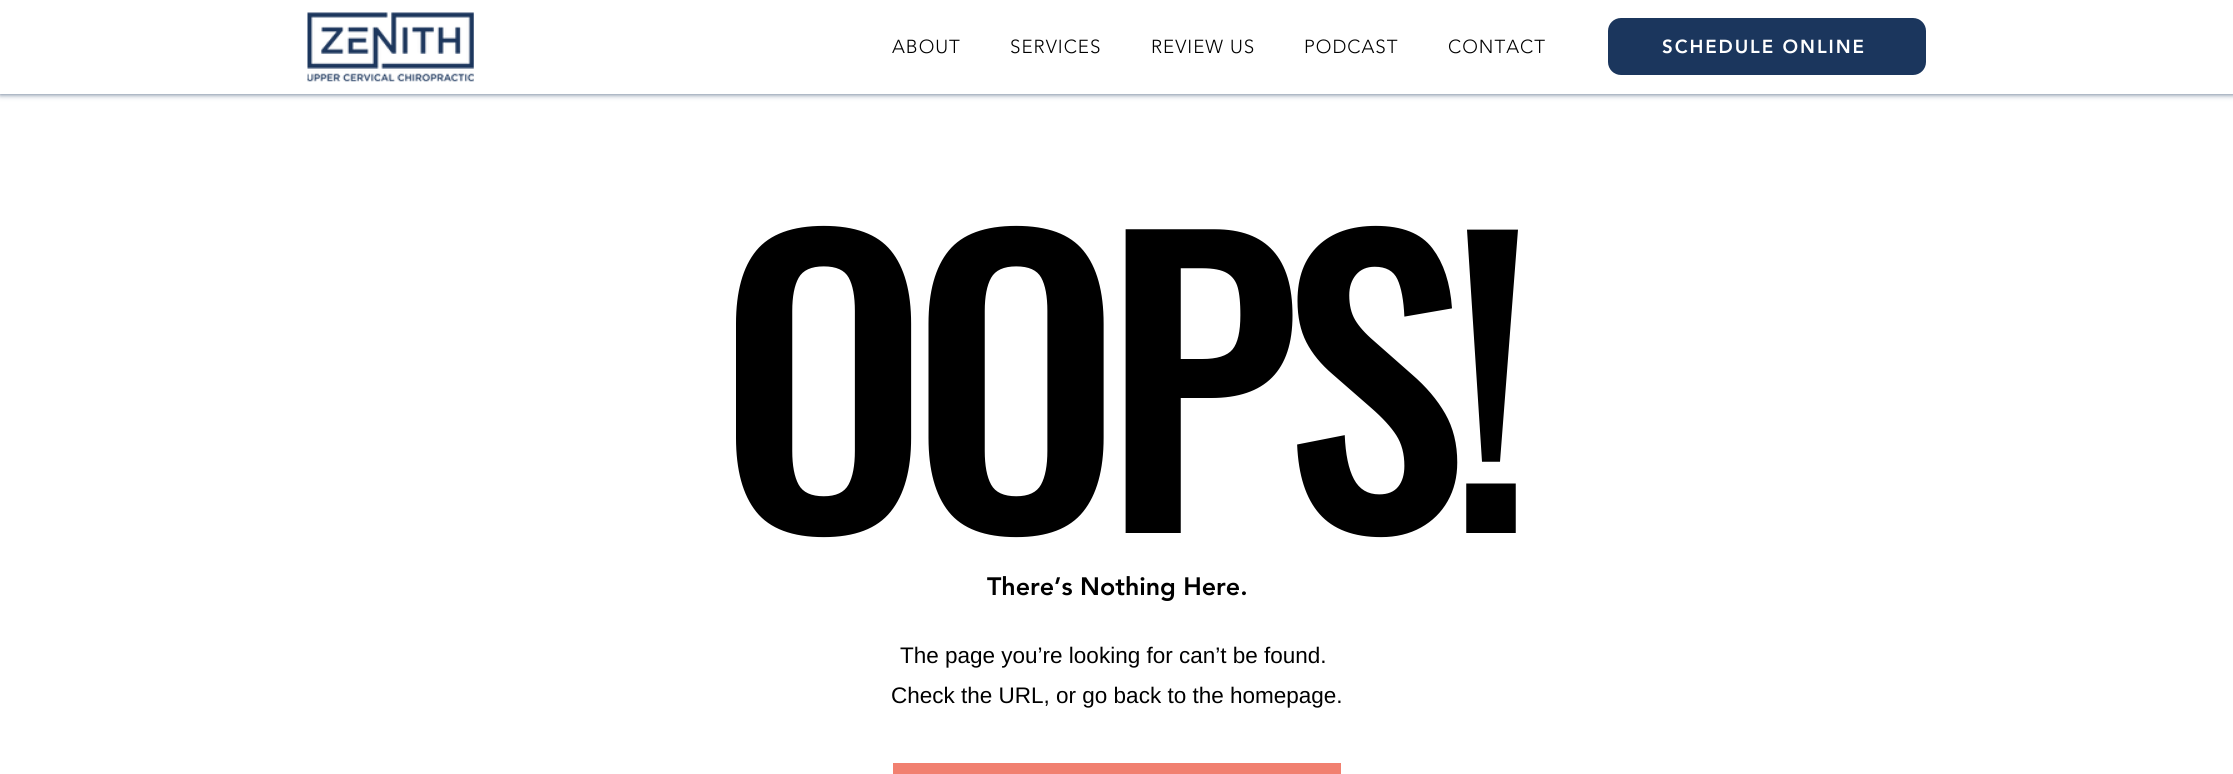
import math
import cairo


def use_color(cr, r, g, b):
  cr.set_source_rgb(r / 255, g / 255, b / 255)

def text(cr, x, y, s, family, size, color, bold=False, italic=False):
  cr.select_font_face(family, cairo.FONT_SLANT_ITALIC if italic else cairo.FONT_SLANT_NORMAL, cairo.FONT_WEIGHT_BOLD if bold else cairo.FONT_WEIGHT_NORMAL)
  cr.set_font_size(size)
  use_color(cr, *color)
  cr.move_to(x, y)
  cr.show_text(s)

def spaced_text(cr, x, y, s, letter, word):
  cr.move_to(x, y)
  for ch in s:
    cr.show_text(ch)
    cr.rel_move_to(letter + word * (ch == ' '), 0)

def box(cr, x, y, w, h, *color):
  use_color(cr, *color)
  cr.rectangle(x, y, w, h)
  cr.fill()

def round_rect(cr, x, y, w, h, r):
  cr.new_sub_path()
  for i, (u, v) in enumerate([(x + w - r, y + h - r), (x + r, y + h - r), (x + r, y + r), (x + w - r, y + r)]):
    cr.arc(u, v, r, i * math.pi / 2, (i + 1) * math.pi / 2)
  cr.close_path()

def shadow(cr, x, y, w, h, r, blur, alpha):
  cr.push_group_with_content(cairo.CONTENT_ALPHA)
  cr.set_operator(cairo.OPERATOR_SOURCE)
  for i in range(15, -16, -2):
    e = blur * i / 6
    if min(w, h) + 2 * e > 0:
      cr.set_source_rgba(0, 0, 0, alpha * math.erfc((i - 1) / 8.5) / 2)
      round_rect(cr, x - e, y - e, w + 2 * e, h + 2 * e, max(0, min(r + e + blur * .6, min(w, h) / 2 + e)))
      cr.fill()
  cr.mask(cr.pop_group())

def picture(cr, path, x, y, w, h):
  cr.save()
  cr.set_source_surface(cairo.ImageSurface.create_from_png(path), x, y)
  cr.rectangle(x, y, w, h)
  cr.fill()
  cr.restore()

def draw(cr):
  use_color(cr, 255, 255, 255)
  cr.paint()
  use_color(cr, 27, 54, 93)
  shadow(cr, 0, 0, 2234, 94, 0, 3, 0.8)
  box(cr, 0, 0, 2233, 94, 255, 255, 255)
  picture(cr, "img_01.png", 307, 12, 167, 70)
  use_color(cr, 27, 54, 93)
  round_rect(cr, 1608, 18, 318, 57, 13)
  cr.fill()
  box(cr, 893, 763, 448, 11, 241, 128, 112)
  cr.select_font_face("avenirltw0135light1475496 Light")
  cr.set_font_size(18.75)
  use_color(cr, 0, 0, 0)
  spaced_text(cr, 892, 53, "ABOUT", 1, 0)
  spaced_text(cr, 1010, 53, "SERVICES", 1, 0)
  spaced_text(cr, 1151, 53, "REVIEW US", 1, 0)
  spaced_text(cr, 1304, 53, "PODCAST", 1, 0)
  spaced_text(cr, 1448, 53, "CONTACT", 1, 0)
  cr.select_font_face("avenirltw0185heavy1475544 Black")
  use_color(cr, 255, 255, 255)
  spaced_text(cr, 1662, 53, "SCHEDULE ONLINE", 1.9, 0)
  cr.select_font_face("Oswald Medium")
  cr.set_font_size(375)
  use_color(cr, 0, 0, 0)
  spaced_text(cr, 718, 533, "OOPS!", -18.75, 0)
  text(cr, 987, 595, "There’s Nothing Here.", "avenirltw0185heavy1475544 Black", 25, (0, 0, 0))
  text(cr, 900, 663, "The page you’re looking for can’t be found.", "Liberation Sans", 22.5, (0, 0, 0))
  text(cr, 891, 703, "Check the URL, or go back to the homepage.", "Liberation Sans", 22.5, (0, 0, 0))


surface = cairo.ImageSurface(cairo.FORMAT_RGB24, 2233, 774)
cr = cairo.Context(surface)
options = cairo.FontOptions()
options.set_hint_metrics(cairo.HINT_METRICS_OFF)
options.set_hint_style(cairo.HINT_STYLE_NONE)
cr.set_font_options(options)
cr.set_miter_limit(4)
draw(cr)
surface.write_to_png("out.png")
